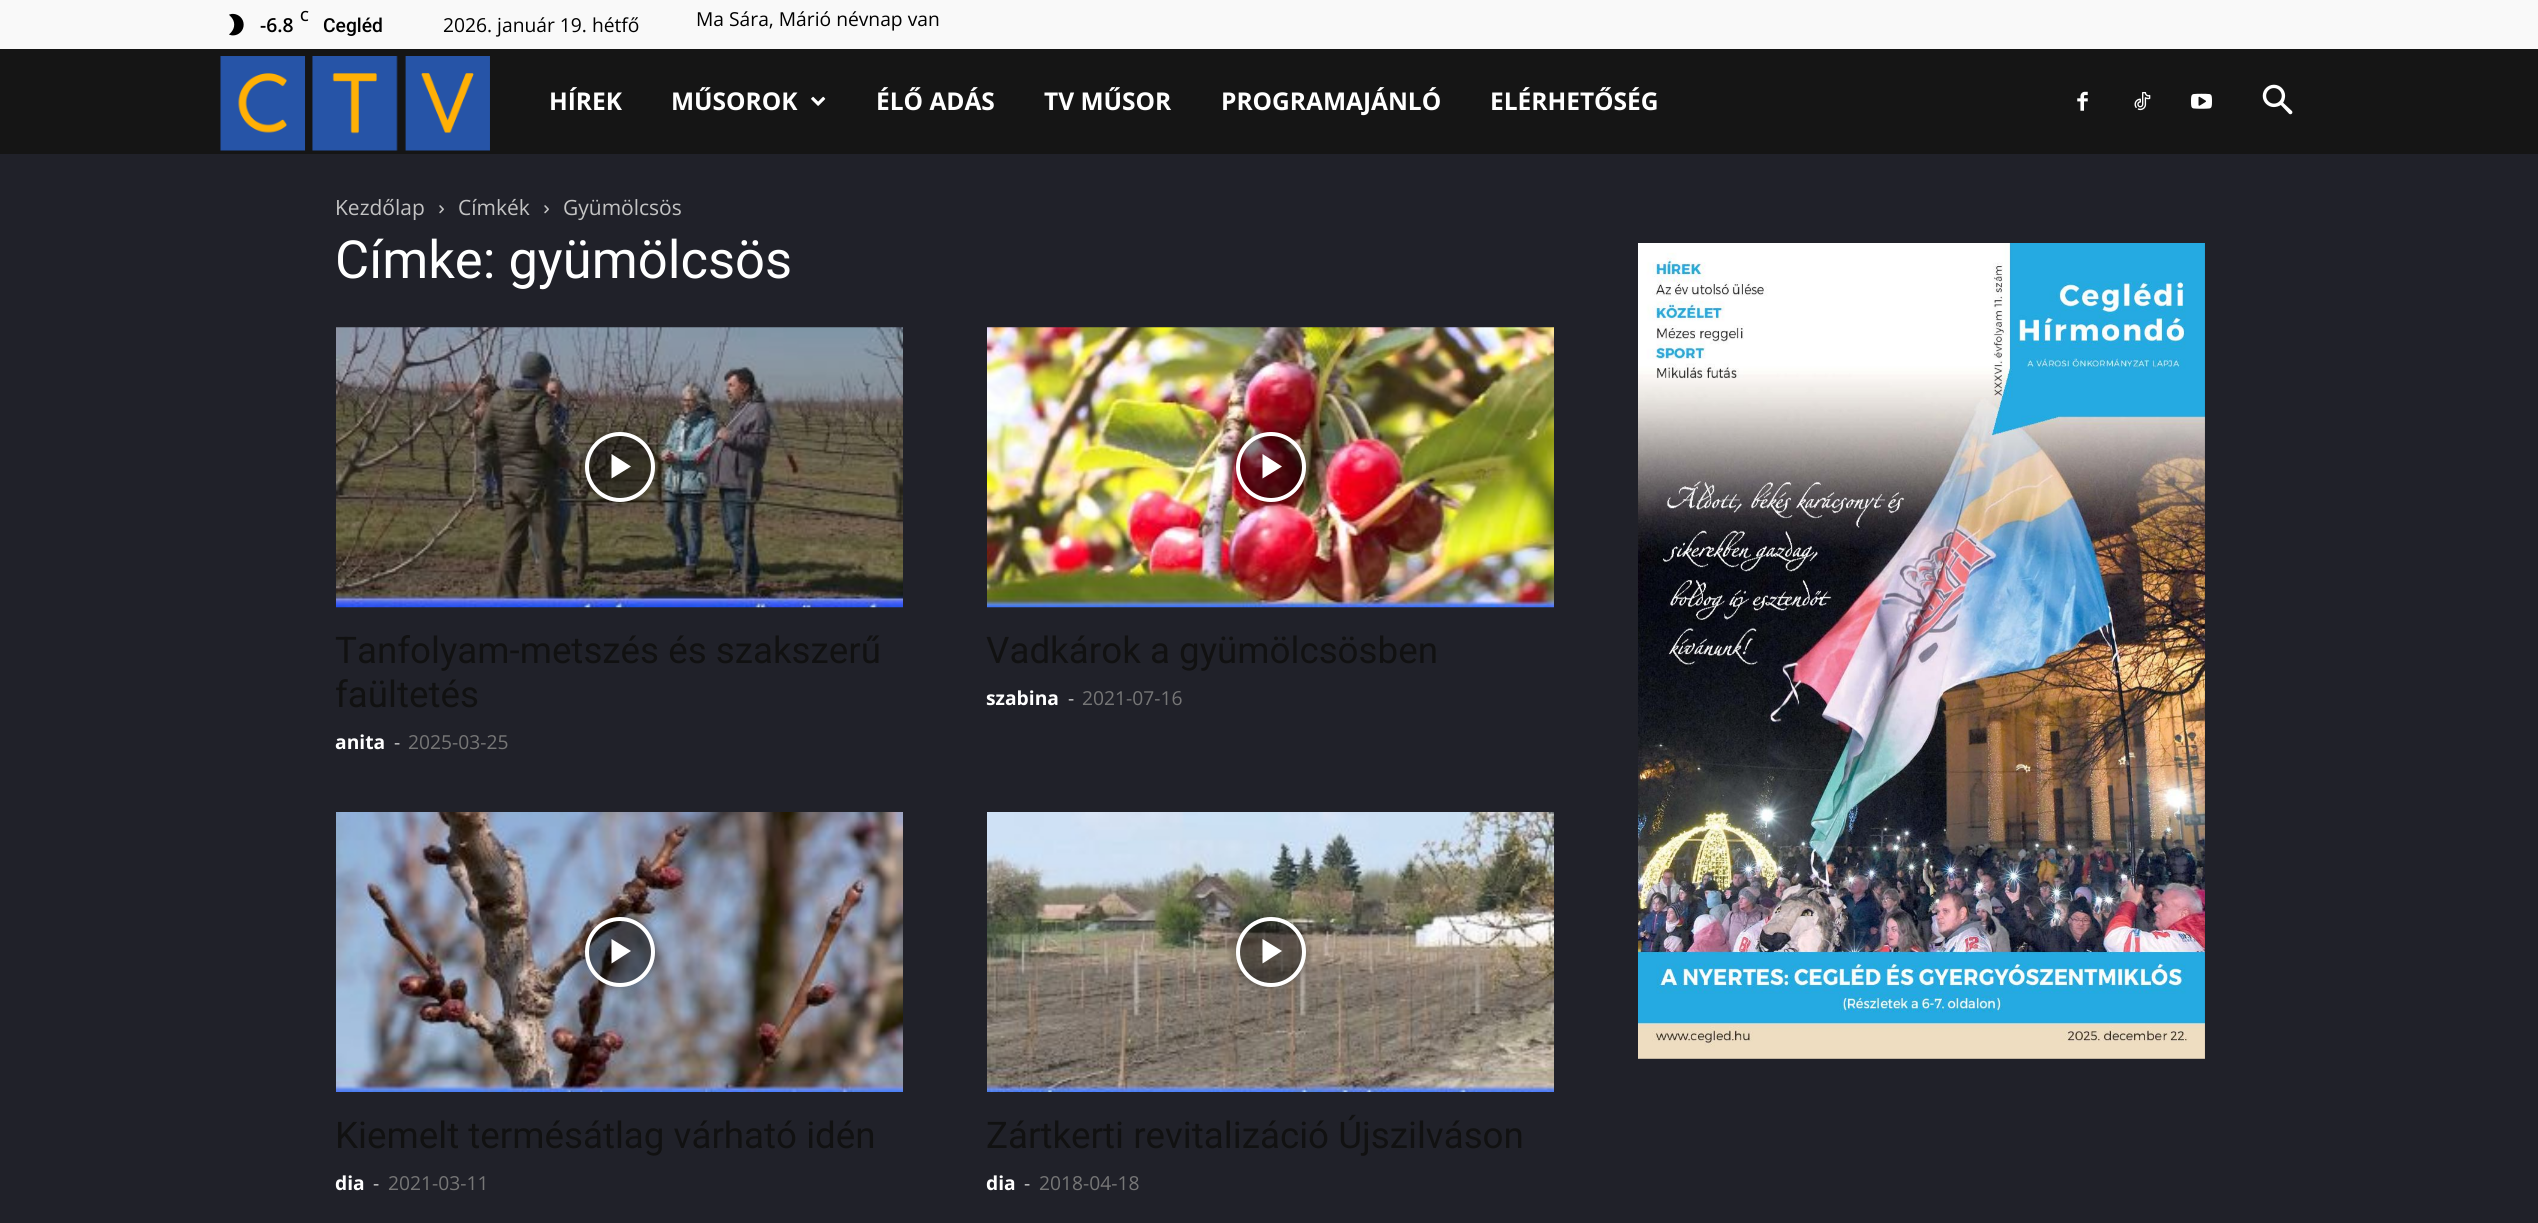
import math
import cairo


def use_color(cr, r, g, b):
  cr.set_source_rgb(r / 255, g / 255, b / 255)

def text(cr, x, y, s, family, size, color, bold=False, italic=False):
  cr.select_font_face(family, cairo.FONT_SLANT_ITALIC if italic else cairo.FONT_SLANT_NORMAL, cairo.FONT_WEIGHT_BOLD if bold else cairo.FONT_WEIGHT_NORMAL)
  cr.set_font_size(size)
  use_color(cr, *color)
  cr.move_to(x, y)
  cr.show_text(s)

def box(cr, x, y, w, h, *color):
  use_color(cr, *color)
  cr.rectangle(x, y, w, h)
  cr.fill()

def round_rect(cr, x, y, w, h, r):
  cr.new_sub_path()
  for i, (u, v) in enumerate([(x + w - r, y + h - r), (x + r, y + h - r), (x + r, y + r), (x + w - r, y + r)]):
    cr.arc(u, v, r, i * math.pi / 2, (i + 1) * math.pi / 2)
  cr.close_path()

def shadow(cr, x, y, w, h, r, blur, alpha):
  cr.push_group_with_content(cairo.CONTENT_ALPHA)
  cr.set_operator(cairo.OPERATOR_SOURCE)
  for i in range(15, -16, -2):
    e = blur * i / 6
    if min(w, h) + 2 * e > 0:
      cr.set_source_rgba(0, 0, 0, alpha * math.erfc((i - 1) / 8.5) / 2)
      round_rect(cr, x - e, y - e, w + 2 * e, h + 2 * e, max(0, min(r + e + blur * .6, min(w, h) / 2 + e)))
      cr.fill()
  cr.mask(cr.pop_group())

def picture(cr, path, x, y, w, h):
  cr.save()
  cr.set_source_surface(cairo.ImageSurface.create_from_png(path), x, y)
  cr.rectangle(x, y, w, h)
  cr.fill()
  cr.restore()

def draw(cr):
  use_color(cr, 32, 33, 41)
  cr.paint()
  box(cr, 0, 0, 2538, 49, 249, 249, 249)
  picture(cr, "img_01.png", 229, 13, 15, 23)
  box(cr, 0, 49, 2538, 105, 21, 21, 21)
  picture(cr, "img_02.png", 220, 56, 270, 95)
  picture(cr, "img_03.png", 811, 96, 15, 10)
  picture(cr, "img_04.png", 2077, 91, 11, 20)
  picture(cr, "img_05.png", 2134, 92, 17, 19)
  picture(cr, "img_06.png", 2191, 93, 21, 16)
  picture(cr, "img_07.png", 2262, 84, 31, 31)
  picture(cr, "img_08.png", 439, 205, 5, 9)
  picture(cr, "img_08.png", 544, 205, 5, 9)
  picture(cr, "img_09.png", 336, 327, 567, 281)
  cr.save()
  cr.set_fill_rule(cairo.FILL_RULE_EVEN_ODD)
  cr.new_path()
  cr.move_to(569, 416)
  cr.line_to(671, 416)
  cr.line_to(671, 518)
  cr.line_to(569, 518)
  cr.close_path()
  cr.move_to(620, 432)
  cr.curve_to(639.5, 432, 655, 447.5, 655, 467)
  cr.curve_to(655, 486.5, 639.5, 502, 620, 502)
  cr.curve_to(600.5, 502, 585, 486.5, 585, 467)
  cr.curve_to(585, 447.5, 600.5, 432, 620, 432)
  cr.close_path()
  cr.clip()
  use_color(cr, 0, 0, 0)
  shadow(cr, 585, 432, 70, 70, 35, 5, 0.4)
  cr.restore()
  cr.set_source_rgba(0, 0, 0, 0.48)
  cr.arc(620, 467, 33, 0, 2 * math.pi)
  cr.fill_preserve()
  use_color(cr, 255, 255, 255)
  cr.set_line_width(4)
  cr.stroke()
  cr.new_path()
  cr.move_to(611.5, 454)
  cr.line_to(611.5, 478.5)
  cr.line_to(631, 466.5)
  cr.close_path()
  cr.fill()
  picture(cr, "img_10.png", 987, 327, 567, 281)
  cr.save()
  cr.set_fill_rule(cairo.FILL_RULE_EVEN_ODD)
  cr.new_path()
  cr.move_to(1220, 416)
  cr.line_to(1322, 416)
  cr.line_to(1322, 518)
  cr.line_to(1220, 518)
  cr.close_path()
  cr.move_to(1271, 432)
  cr.curve_to(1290.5, 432, 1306, 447.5, 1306, 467)
  cr.curve_to(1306, 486.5, 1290.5, 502, 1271, 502)
  cr.curve_to(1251.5, 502, 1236, 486.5, 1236, 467)
  cr.curve_to(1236, 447.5, 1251.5, 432, 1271, 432)
  cr.close_path()
  cr.clip()
  use_color(cr, 0, 0, 0)
  shadow(cr, 1236, 432, 70, 70, 35, 5, 0.4)
  cr.restore()
  cr.set_source_rgba(0, 0, 0, 0.48)
  cr.arc(1271, 467, 33, 0, 2 * math.pi)
  cr.fill_preserve()
  use_color(cr, 255, 255, 255)
  cr.stroke()
  cr.new_path()
  cr.move_to(1262.5, 454)
  cr.line_to(1262.5, 478.5)
  cr.line_to(1282, 466.5)
  cr.close_path()
  cr.fill()
  picture(cr, "img_11.png", 336, 812, 567, 280)
  cr.save()
  cr.set_fill_rule(cairo.FILL_RULE_EVEN_ODD)
  cr.new_path()
  cr.move_to(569, 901)
  cr.line_to(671, 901)
  cr.line_to(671, 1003)
  cr.line_to(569, 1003)
  cr.close_path()
  cr.move_to(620, 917)
  cr.curve_to(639.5, 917, 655, 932.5, 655, 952)
  cr.curve_to(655, 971.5, 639.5, 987, 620, 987)
  cr.curve_to(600.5, 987, 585, 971.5, 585, 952)
  cr.curve_to(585, 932.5, 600.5, 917, 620, 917)
  cr.close_path()
  cr.clip()
  use_color(cr, 0, 0, 0)
  shadow(cr, 585, 917, 70, 70, 35, 5, 0.4)
  cr.restore()
  cr.set_source_rgba(0, 0, 0, 0.48)
  cr.arc(620, 952, 33, 0, 2 * math.pi)
  cr.fill_preserve()
  use_color(cr, 255, 255, 255)
  cr.stroke()
  cr.new_path()
  cr.move_to(611.5, 939)
  cr.line_to(611.5, 963.5)
  cr.line_to(631, 951)
  cr.close_path()
  cr.fill()
  picture(cr, "img_12.png", 987, 812, 567, 280)
  cr.save()
  cr.set_fill_rule(cairo.FILL_RULE_EVEN_ODD)
  cr.new_path()
  cr.move_to(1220, 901)
  cr.line_to(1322, 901)
  cr.line_to(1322, 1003)
  cr.line_to(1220, 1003)
  cr.close_path()
  cr.move_to(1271, 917)
  cr.curve_to(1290.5, 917, 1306, 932.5, 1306, 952)
  cr.curve_to(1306, 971.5, 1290.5, 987, 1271, 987)
  cr.curve_to(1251.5, 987, 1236, 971.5, 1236, 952)
  cr.curve_to(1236, 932.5, 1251.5, 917, 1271, 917)
  cr.close_path()
  cr.clip()
  use_color(cr, 0, 0, 0)
  shadow(cr, 1236, 917, 70, 70, 35, 5, 0.4)
  cr.restore()
  cr.set_source_rgba(0, 0, 0, 0.48)
  cr.arc(1271, 952, 33, 0, 2 * math.pi)
  cr.fill_preserve()
  use_color(cr, 255, 255, 255)
  cr.stroke()
  cr.new_path()
  cr.move_to(1262.5, 939)
  cr.line_to(1262.5, 963.5)
  cr.line_to(1282, 951)
  cr.close_path()
  cr.fill()
  picture(cr, "img_13.png", 1638, 243, 567, 816)
  text(cr, 300, 21, "C", "Open Sans SemiBold", 14, (0, 0, 0))
  text(cr, 260, 32, "-6.8", "Open Sans SemiBold", 19.25, (0, 0, 0))
  text(cr, 323, 32, "Cegléd", "Roboto Medium", 19.25, (0, 0, 0))
  text(cr, 443, 32, "2026. január 19. hétfő", "Open Sans", 19.25, (0, 0, 0))
  text(cr, 696, 26, "Ma Sára, Márió névnap van", "Open Sans", 19.25, (0, 0, 0))
  text(cr, 549, 110, "HÍREK", "Open Sans", 24.5, (255, 255, 255), bold=True)
  text(cr, 671, 110, "MŰSOROK", "Open Sans", 24.5, (255, 255, 255), bold=True)
  text(cr, 876, 110, "ÉLŐ ADÁS", "Open Sans", 24.5, (255, 255, 255), bold=True)
  text(cr, 1044, 110, "TV MŰSOR", "Open Sans", 24.5, (255, 255, 255), bold=True)
  text(cr, 1221, 110, "PROGRAMAJÁNLÓ", "Open Sans", 24.5, (255, 255, 255), bold=True)
  text(cr, 1490, 110, "ELÉRHETŐSÉG", "Open Sans", 24.5, (255, 255, 255), bold=True)
  text(cr, 335, 215, "Kezdőlap", "Open Sans", 21, (195, 195, 195))
  text(cr, 458, 215, "Címkék", "Open Sans", 21, (195, 195, 195))
  text(cr, 563, 215, "Gyümölcsös", "Open Sans", 21, (195, 195, 195))
  text(cr, 335, 278, "Címke: gyümölcsös", "Roboto", 52.5, (255, 255, 255))
  text(cr, 335, 663, "Tanfolyam-metszés és szakszerű", "Roboto", 36.75, (17, 17, 17))
  text(cr, 335, 707, "faültetés", "Roboto", 36.75, (17, 17, 17))
  text(cr, 335, 749, "anita", "Open Sans", 19.25, (255, 255, 255), bold=True)
  text(cr, 394, 749, "-", "Open Sans", 19.25, (204, 204, 204))
  text(cr, 408, 749, "2025-03-25", "Open Sans", 19.25, (118, 118, 118))
  text(cr, 986, 663, "Vadkárok a gyümölcsösben", "Roboto", 36.75, (17, 17, 17))
  text(cr, 986, 705, "szabina", "Open Sans", 19.25, (255, 255, 255), bold=True)
  text(cr, 1068, 705, "-", "Open Sans", 19.25, (204, 204, 204))
  text(cr, 1082, 705, "2021-07-16", "Open Sans", 19.25, (118, 118, 118))
  text(cr, 335, 1148, "Kiemelt termésátlag várható idén", "Roboto", 36.75, (17, 17, 17))
  text(cr, 335, 1190, "dia", "Open Sans", 19.25, (255, 255, 255), bold=True)
  text(cr, 373, 1190, "-", "Open Sans", 19.25, (204, 204, 204))
  text(cr, 388, 1190, "2021-03-11", "Open Sans", 19.25, (118, 118, 118))
  text(cr, 986, 1148, "Zártkerti revitalizáció Újszilváson", "Roboto", 36.75, (17, 17, 17))
  text(cr, 986, 1190, "dia", "Open Sans", 19.25, (255, 255, 255), bold=True)
  text(cr, 1024, 1190, "-", "Open Sans", 19.25, (204, 204, 204))
  text(cr, 1039, 1190, "2018-04-18", "Open Sans", 19.25, (118, 118, 118))


surface = cairo.ImageSurface(cairo.FORMAT_RGB24, 2538, 1223)
cr = cairo.Context(surface)
options = cairo.FontOptions()
options.set_hint_metrics(cairo.HINT_METRICS_OFF)
options.set_hint_style(cairo.HINT_STYLE_NONE)
cr.set_font_options(options)
cr.set_miter_limit(4)
draw(cr)
surface.write_to_png("out.png")
